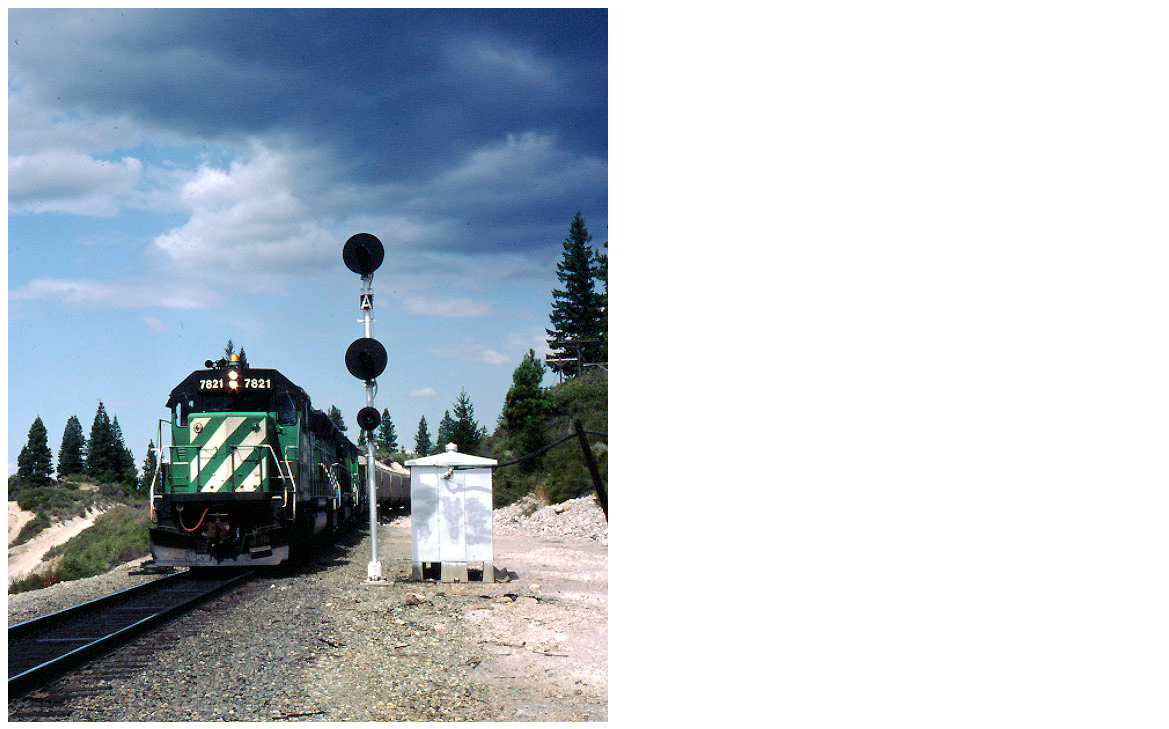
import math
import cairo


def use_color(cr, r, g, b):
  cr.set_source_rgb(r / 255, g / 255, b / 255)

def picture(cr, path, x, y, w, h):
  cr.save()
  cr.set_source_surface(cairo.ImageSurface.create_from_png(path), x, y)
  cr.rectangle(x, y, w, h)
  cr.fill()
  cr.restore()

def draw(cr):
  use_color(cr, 255, 255, 255)
  cr.paint()
  picture(cr, "img_01.png", 8, 8, 600, 714)


surface = cairo.ImageSurface(cairo.FORMAT_RGB24, 1169, 729)
cr = cairo.Context(surface)
options = cairo.FontOptions()
options.set_hint_metrics(cairo.HINT_METRICS_OFF)
options.set_hint_style(cairo.HINT_STYLE_NONE)
cr.set_font_options(options)
cr.set_miter_limit(4)
draw(cr)
surface.write_to_png("out.png")
